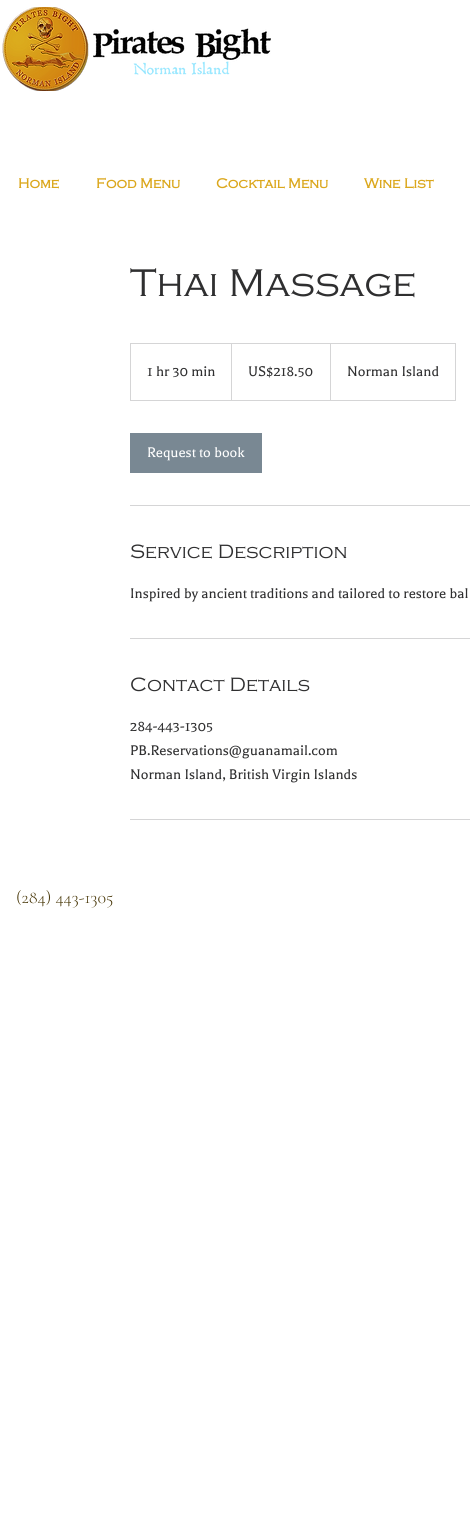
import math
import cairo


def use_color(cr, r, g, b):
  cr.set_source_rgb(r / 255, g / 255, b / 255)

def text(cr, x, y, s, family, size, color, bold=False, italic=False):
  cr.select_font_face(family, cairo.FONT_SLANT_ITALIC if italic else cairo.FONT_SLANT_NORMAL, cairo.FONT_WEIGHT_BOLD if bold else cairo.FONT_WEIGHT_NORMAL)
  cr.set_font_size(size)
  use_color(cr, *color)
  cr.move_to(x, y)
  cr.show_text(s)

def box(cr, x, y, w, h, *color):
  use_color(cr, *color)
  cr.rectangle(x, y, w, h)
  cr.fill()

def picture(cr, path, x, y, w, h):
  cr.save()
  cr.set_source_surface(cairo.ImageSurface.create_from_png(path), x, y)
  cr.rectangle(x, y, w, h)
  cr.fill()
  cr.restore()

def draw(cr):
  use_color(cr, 255, 255, 255)
  cr.paint()
  picture(cr, "img_01.png", 2, 7, 87, 84)
  picture(cr, "img_02.png", 93, 28, 178, 47)
  cr.rectangle(130.5, 343.5, 325, 57)
  use_color(cr, 213, 213, 214)
  cr.set_line_width(1)
  cr.stroke()
  cr.new_path()
  cr.move_to(231, 400)
  cr.line_to(231, 343)
  cr.line_to(232, 344)
  cr.line_to(232, 400)
  cr.close_path()
  cr.fill()
  cr.new_path()
  cr.move_to(330, 400)
  cr.line_to(330, 343)
  cr.line_to(331, 344)
  cr.line_to(331, 400)
  cr.close_path()
  cr.fill()
  box(cr, 130, 433, 132, 40, 121, 136, 147)
  box(cr, 130, 505, 340, 1, 213, 213, 214)
  box(cr, 130, 638, 340, 1, 213, 213, 214)
  box(cr, 130, 819, 340, 1, 213, 213, 214)
  text(cr, 18, 188, "Home", "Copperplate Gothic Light", 14, (219, 167, 28), bold=True)
  text(cr, 96, 188, "Food Menu", "Copperplate Gothic Light", 14, (219, 167, 28), bold=True)
  text(cr, 216, 188, "Cocktail Menu", "Copperplate Gothic Light", 14, (219, 167, 28), bold=True)
  text(cr, 364, 188, "Wine List", "Copperplate Gothic Light", 14, (219, 167, 28), bold=True)
  text(cr, 130, 296, "Thai Massage", "Copperplate Gothic Light Light", 40, (47, 47, 48))
  text(cr, 147, 376, "1 hr 30 min", "Balthazar", 16, (47, 47, 48))
  text(cr, 248, 376, "US$218.50", "Balthazar", 16, (47, 47, 48))
  text(cr, 347, 376, "Norman Island", "Balthazar", 16, (47, 47, 48))
  text(cr, 147, 457, "Request to book", "Balthazar", 16, (255, 255, 255))
  text(cr, 130, 558, "Service Description", "Copperplate Gothic Light Light", 20, (47, 47, 48))
  text(cr, 130, 598, "Inspired by ancient traditions and tailored to restore bal", "Balthazar", 16, (47, 47, 48))
  text(cr, 130, 691, "Contact Details", "Copperplate Gothic Light Light", 20, (47, 47, 48))
  text(cr, 130, 731, "284-443-1305", "Balthazar", 16, (47, 47, 48))
  text(cr, 130, 755, "PB.Reservations@guanamail.com", "Balthazar", 16, (47, 47, 48))
  text(cr, 130, 779, "Norman Island, British Virgin Islands", "Balthazar", 16, (47, 47, 48))
  text(cr, 16, 903, "(284) 443-1305", "Cormorant Garamond Light", 18, (73, 56, 9))


surface = cairo.ImageSurface(cairo.FORMAT_RGB24, 470, 1518)
cr = cairo.Context(surface)
options = cairo.FontOptions()
options.set_hint_metrics(cairo.HINT_METRICS_OFF)
options.set_hint_style(cairo.HINT_STYLE_NONE)
cr.set_font_options(options)
cr.set_miter_limit(4)
draw(cr)
surface.write_to_png("out.png")
